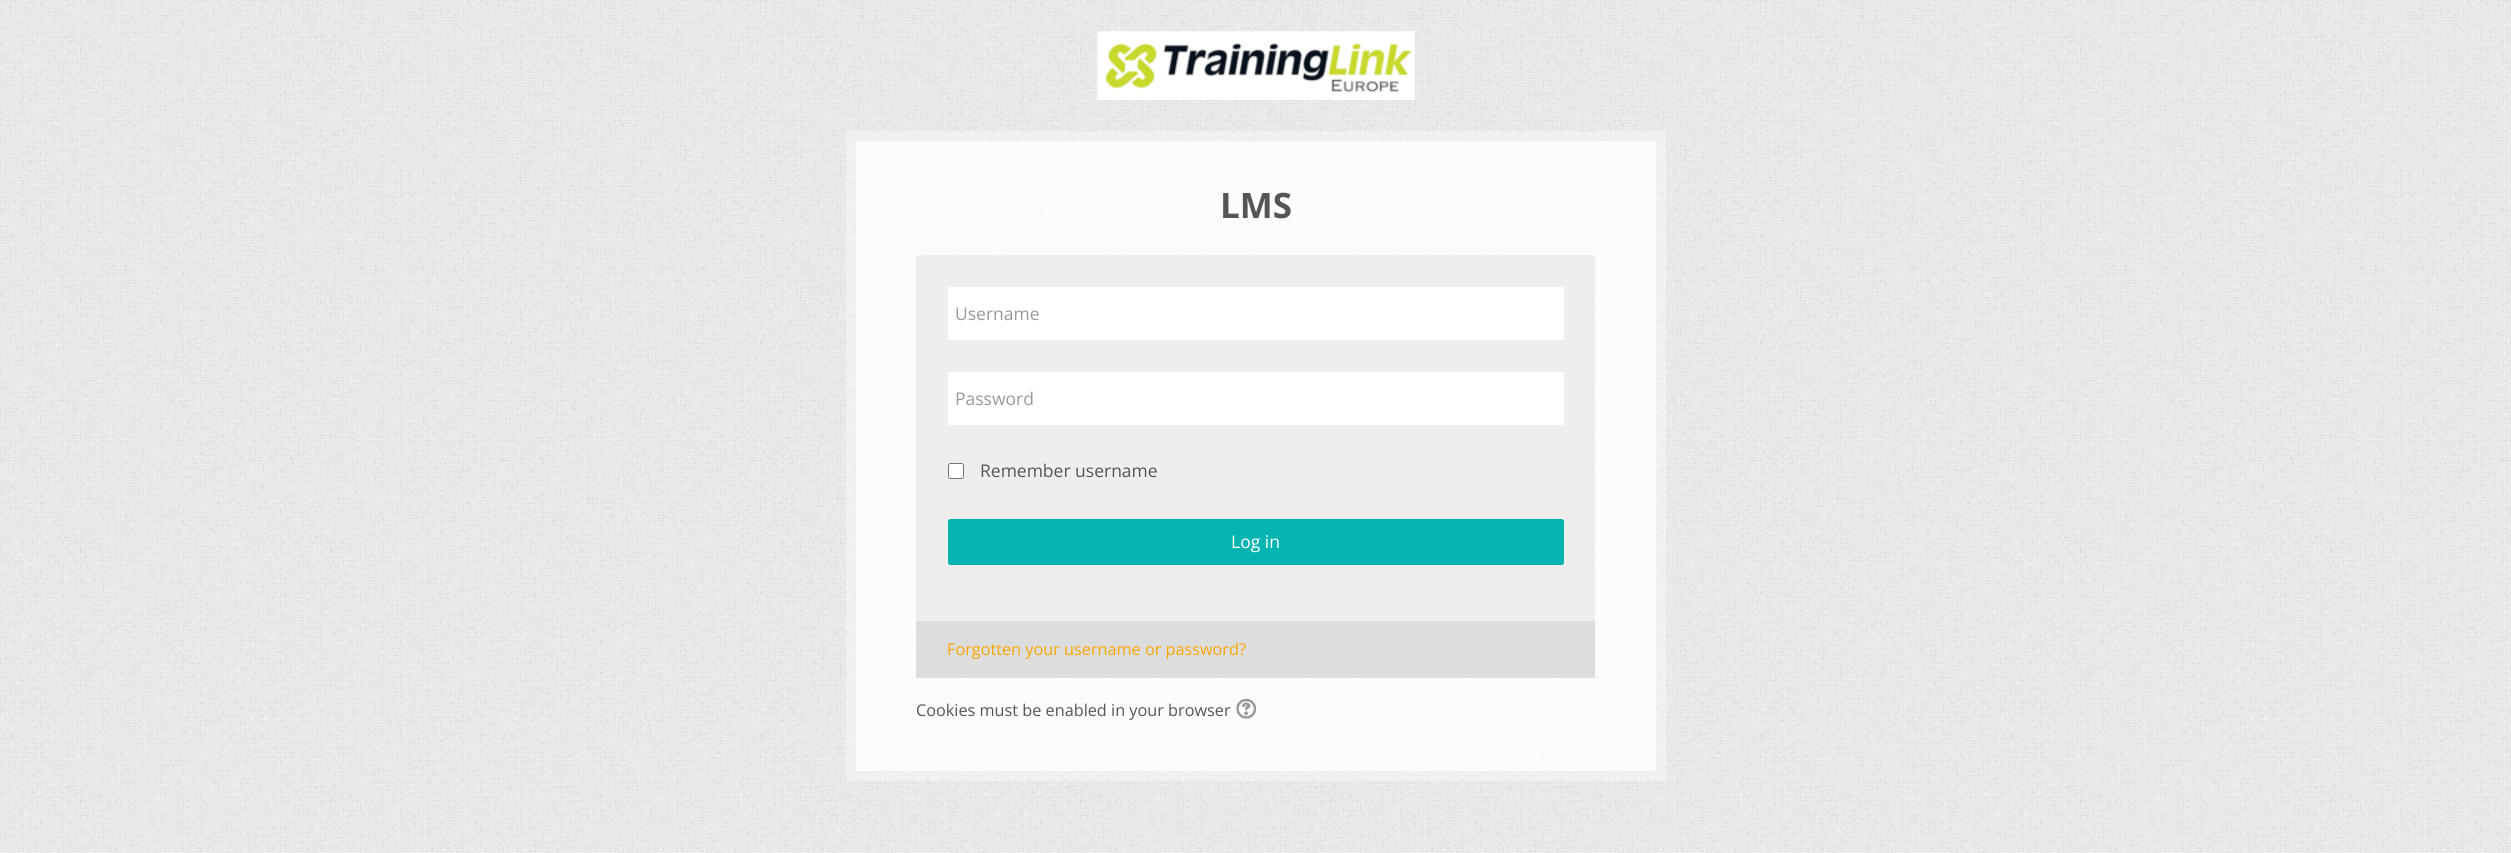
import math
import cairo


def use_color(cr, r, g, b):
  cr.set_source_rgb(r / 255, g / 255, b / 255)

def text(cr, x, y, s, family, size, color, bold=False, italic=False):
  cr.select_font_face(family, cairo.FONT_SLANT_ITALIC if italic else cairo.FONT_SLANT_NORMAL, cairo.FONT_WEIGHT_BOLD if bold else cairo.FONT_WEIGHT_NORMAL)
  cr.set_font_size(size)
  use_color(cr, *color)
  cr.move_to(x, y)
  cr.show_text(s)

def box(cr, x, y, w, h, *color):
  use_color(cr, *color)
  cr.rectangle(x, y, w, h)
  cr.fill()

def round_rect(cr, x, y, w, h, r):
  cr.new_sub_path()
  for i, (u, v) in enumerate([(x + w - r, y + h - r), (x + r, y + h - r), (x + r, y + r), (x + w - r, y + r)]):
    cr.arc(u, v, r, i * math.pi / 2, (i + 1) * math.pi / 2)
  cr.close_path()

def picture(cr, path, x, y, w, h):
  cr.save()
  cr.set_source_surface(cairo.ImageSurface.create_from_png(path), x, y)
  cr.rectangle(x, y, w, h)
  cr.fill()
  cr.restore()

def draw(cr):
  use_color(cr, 255, 255, 255)
  cr.paint()
  picture(cr, "img_01.png", 0, 0, 2511, 853)
  picture(cr, "img_02.png", 1097, 31, 318, 69)
  cr.set_source_rgba(1, 1, 1, 0.85)
  cr.rectangle(856, 141, 800, 630)
  cr.fill()
  cr.new_path()
  cr.move_to(851, 136)
  cr.line_to(1661, 136)
  cr.line_to(1661, 776)
  cr.line_to(851, 776)
  cr.close_path()
  cr.set_source_rgba(1, 1, 1, 0.35)
  cr.set_line_width(10)
  cr.stroke()
  box(cr, 916, 255, 679, 366, 238, 238, 238)
  box(cr, 948, 287, 616, 53, 255, 255, 255)
  box(cr, 948, 372, 616, 53, 255, 255, 255)
  round_rect(cr, 948.5, 463.5, 15, 15, 2)
  cr.fill_preserve()
  use_color(cr, 118, 118, 118)
  cr.set_line_width(1)
  cr.stroke()
  use_color(cr, 3, 180, 176)
  round_rect(cr, 948, 519, 616, 46, 2.5)
  cr.fill()
  cr.set_source_rgba(0, 0, 0, 0.1)
  cr.new_path()
  cr.move_to(948, 561)
  cr.line_to(948, 562)
  cr.curve_to(948, 564, 949, 565, 950, 565)
  cr.line_to(1562, 565)
  cr.curve_to(1563, 565, 1564, 564, 1564, 562)
  cr.line_to(1564, 561)
  cr.curve_to(1564, 563, 1563, 564, 1561, 564)
  cr.line_to(950, 564)
  cr.curve_to(949, 564, 948, 563, 948, 561)
  cr.close_path()
  cr.fill()
  box(cr, 916, 621, 679, 57, 221, 221, 221)
  picture(cr, "img_03.png", 1236, 699, 20, 20)
  text(cr, 1220, 218, "LMS", "Open Sans", 35, (85, 85, 85), bold=True)
  text(cr, 955, 320, "Username", "Open Sans", 17.5, (153, 153, 153))
  text(cr, 955, 405, "Password", "Open Sans", 17.5, (153, 153, 153))
  text(cr, 980, 477, "Remember username", "Open Sans", 17.5, (85, 85, 85))
  text(cr, 1231, 548, "Log in", "Open Sans", 17.5, (255, 255, 255))
  text(cr, 947, 655, "Forgotten your username or password?", "Open Sans", 16.25, (249, 166, 0))
  text(cr, 916, 716, "Cookies must be enabled in your browser", "Open Sans", 16.25, (85, 85, 85))


surface = cairo.ImageSurface(cairo.FORMAT_RGB24, 2511, 853)
cr = cairo.Context(surface)
options = cairo.FontOptions()
options.set_hint_metrics(cairo.HINT_METRICS_OFF)
options.set_hint_style(cairo.HINT_STYLE_NONE)
cr.set_font_options(options)
cr.set_miter_limit(4)
draw(cr)
surface.write_to_png("out.png")
